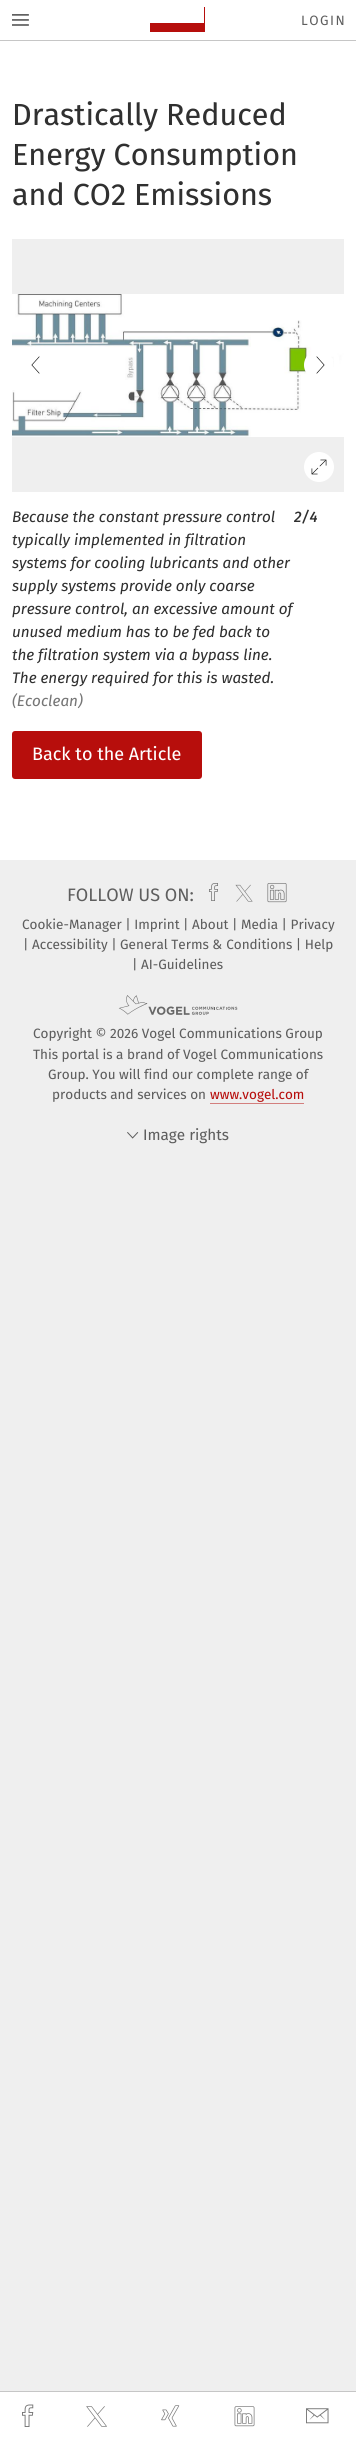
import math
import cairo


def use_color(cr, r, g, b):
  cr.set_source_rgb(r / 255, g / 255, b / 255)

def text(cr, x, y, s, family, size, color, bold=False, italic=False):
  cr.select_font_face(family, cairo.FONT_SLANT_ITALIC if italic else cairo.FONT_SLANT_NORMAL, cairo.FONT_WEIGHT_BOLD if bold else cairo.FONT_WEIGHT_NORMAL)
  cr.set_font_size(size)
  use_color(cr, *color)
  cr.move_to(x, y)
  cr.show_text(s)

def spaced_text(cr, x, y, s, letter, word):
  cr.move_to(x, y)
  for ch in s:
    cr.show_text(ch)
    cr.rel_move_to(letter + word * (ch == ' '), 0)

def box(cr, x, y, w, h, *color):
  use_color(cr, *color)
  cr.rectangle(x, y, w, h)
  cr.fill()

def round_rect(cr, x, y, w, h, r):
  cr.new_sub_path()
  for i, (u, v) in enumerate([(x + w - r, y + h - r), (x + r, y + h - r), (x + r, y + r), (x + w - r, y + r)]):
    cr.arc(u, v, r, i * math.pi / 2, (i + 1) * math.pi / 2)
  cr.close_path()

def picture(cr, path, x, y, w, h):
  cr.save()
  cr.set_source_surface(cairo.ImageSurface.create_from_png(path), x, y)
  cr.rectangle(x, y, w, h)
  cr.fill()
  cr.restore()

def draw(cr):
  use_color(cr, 239, 239, 239)
  cr.paint()
  box(cr, 0, 41, 356, 819, 255, 255, 255)
  box(cr, 0, 0, 356, 40, 255, 255, 255)
  box(cr, 0, 40, 356, 1, 198, 198, 198)
  picture(cr, "img_01.png", 12, 14, 17, 12)
  box(cr, 204, 7, 1, 16, 182, 14, 12)
  box(cr, 150, 23, 55, 9, 182, 14, 12)
  box(cr, 12, 239, 332, 253, 239, 239, 239)
  picture(cr, "img_02.png", 12, 294, 332, 143)
  picture(cr, "img_03.png", 31, 356, 9, 18)
  picture(cr, "img_04.png", 304, 356, 29, 18)
  picture(cr, "img_05.png", 304, 452, 30, 30)
  use_color(cr, 183, 14, 12)
  round_rect(cr, 12, 731, 190, 48, 3)
  cr.fill()
  box(cr, 0, 2392, 356, 49, 255, 255, 255)
  box(cr, 0, 2391, 356, 1, 198, 198, 198)
  picture(cr, "img_06.png", 22, 2404, 12, 23)
  picture(cr, "img_07.png", 86, 2406, 21, 21)
  picture(cr, "img_08.png", 161, 2405, 19, 22)
  picture(cr, "img_09.png", 234, 2406, 21, 21)
  picture(cr, "img_10.png", 306, 2408, 23, 16)
  picture(cr, "img_11.png", 209, 883, 9, 18)
  picture(cr, "img_12.png", 235, 884, 18, 18)
  picture(cr, "img_13.png", 267, 883, 20, 20)
  picture(cr, "img_14.png", 118, 995, 120, 20)
  box(cr, 210, 1103, 94, 1, 211, 127, 126)
  picture(cr, "img_15.png", 127, 1132, 12, 7)
  cr.select_font_face("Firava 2")
  cr.set_font_size(13.5)
  use_color(cr, 94, 94, 94)
  spaced_text(cr, 301, 25, "LOGIN", 1.5, 0)
  text(cr, 12, 125, "Drastically Reduced", "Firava", 30.5, (48, 48, 48))
  text(cr, 12, 165, "Energy Consumption", "Firava", 30.5, (48, 48, 48))
  text(cr, 12, 205, "and CO2 Emissions", "Firava", 30.5, (48, 48, 48))
  text(cr, 12, 522, "Because the constant pressure control", "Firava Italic", 15.25, (48, 48, 48), italic=True)
  text(cr, 12, 545, "typically implemented in filtration", "Firava Italic", 15.25, (48, 48, 48), italic=True)
  text(cr, 12, 568, "systems for cooling lubricants and other", "Firava Italic", 15.25, (48, 48, 48), italic=True)
  text(cr, 12, 591, "supply systems provide only coarse", "Firava Italic", 15.25, (48, 48, 48), italic=True)
  text(cr, 12, 614, "pressure control, an excessive amount of", "Firava Italic", 15.25, (48, 48, 48), italic=True)
  text(cr, 12, 637, "unused medium has to be fed back to", "Firava Italic", 15.25, (48, 48, 48), italic=True)
  text(cr, 12, 660, "the filtration system via a bypass line.", "Firava Italic", 15.25, (48, 48, 48), italic=True)
  text(cr, 12, 683, "The energy required for this is wasted.", "Firava Italic", 15.25, (48, 48, 48), italic=True)
  text(cr, 12, 706, "(Ecoclean)", "Firava Italic", 15.25, (118, 118, 118), italic=True)
  text(cr, 294, 522, "2/4", "Firava Italic Medium", 15.25, (48, 48, 48), italic=True)
  text(cr, 32, 760, "Back to the Article", "Firava", 18, (255, 255, 255))
  text(cr, 67, 901, "FOLLOW US ON:", "Firava 2", 18, (94, 94, 94))
  text(cr, 22, 929, "Cookie-Manager | Imprint | About | Media | Privacy", "Firava", 13.5, (94, 94, 94))
  text(cr, 23, 949, "| Accessibility | General Terms & Conditions | Help", "Firava", 13.5, (94, 94, 94))
  text(cr, 132, 969, "| AI-Guidelines", "Firava", 13.5, (94, 94, 94))
  text(cr, 33, 1038, "Copyright © 2026 Vogel Communications Group", "Firava", 13.5, (94, 94, 94))
  text(cr, 33, 1059, "This portal is a brand of Vogel Communications", "Firava", 13.5, (94, 94, 94))
  text(cr, 48, 1079, "Group. You will find our complete range of", "Firava", 13.5, (94, 94, 94))
  text(cr, 52, 1099, "products and services on", "Firava", 13.5, (94, 94, 94))
  text(cr, 210, 1099, "www.vogel.com", "Firava", 13.5, (183, 14, 12))
  text(cr, 143, 1140, "Image rights", "Firava", 15.25, (94, 94, 94))


surface = cairo.ImageSurface(cairo.FORMAT_RGB24, 356, 2441)
cr = cairo.Context(surface)
options = cairo.FontOptions()
options.set_hint_metrics(cairo.HINT_METRICS_OFF)
options.set_hint_style(cairo.HINT_STYLE_NONE)
cr.set_font_options(options)
cr.set_miter_limit(4)
draw(cr)
surface.write_to_png("out.png")
